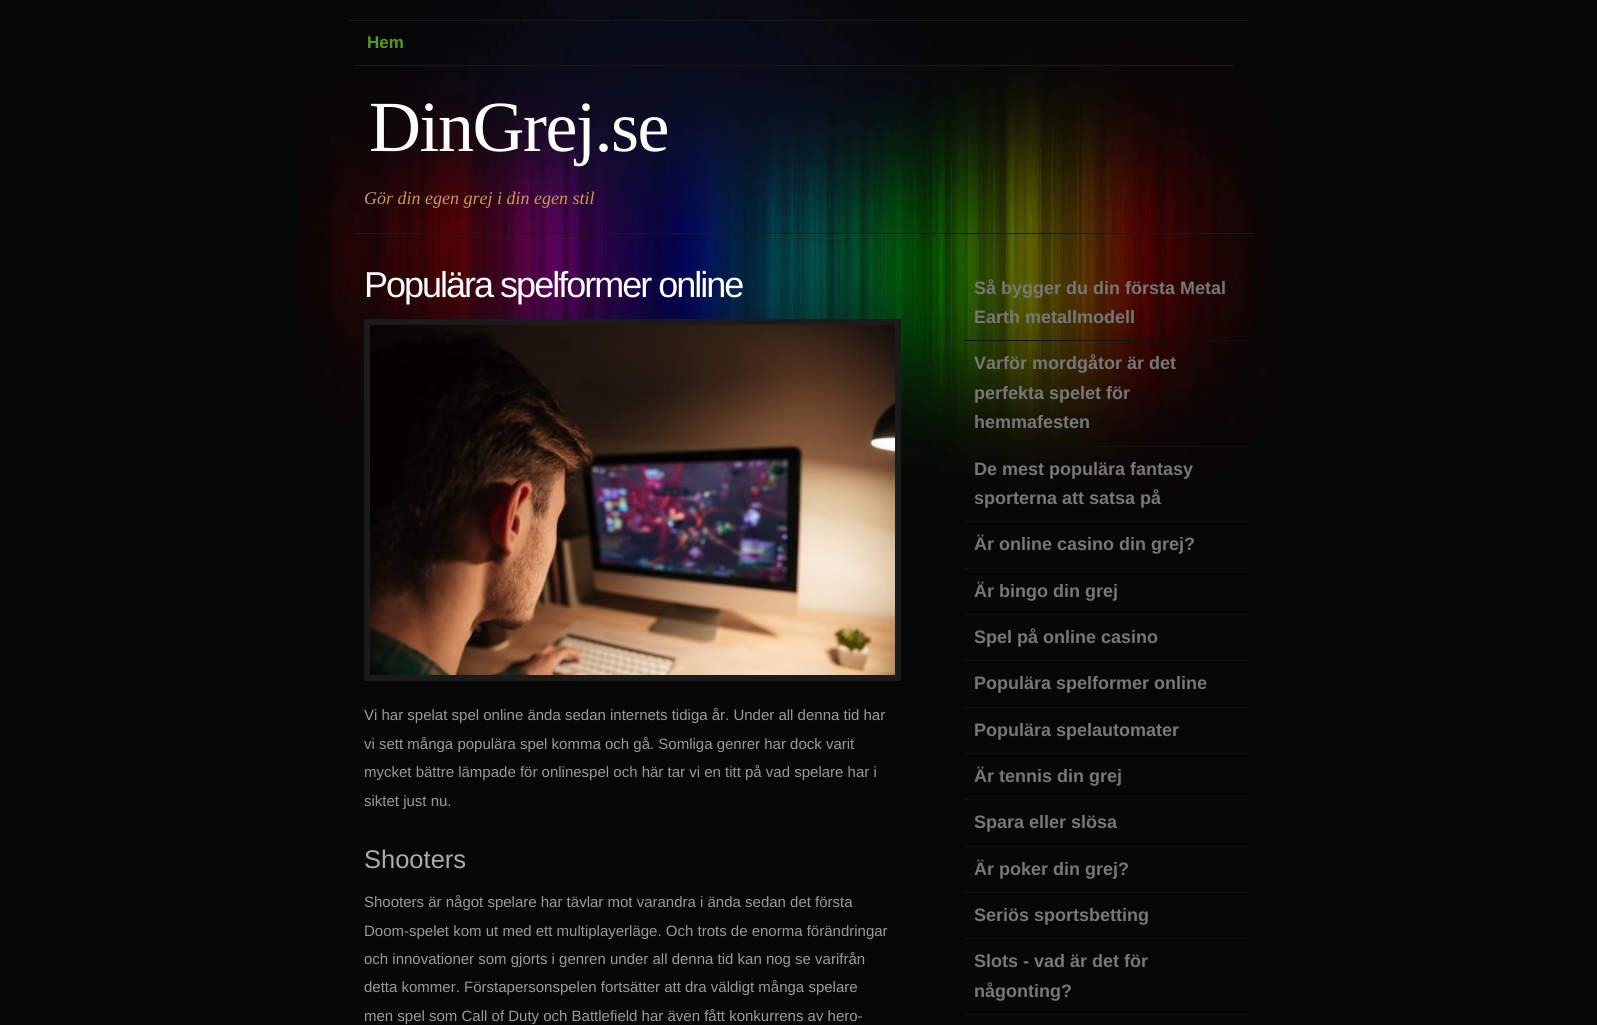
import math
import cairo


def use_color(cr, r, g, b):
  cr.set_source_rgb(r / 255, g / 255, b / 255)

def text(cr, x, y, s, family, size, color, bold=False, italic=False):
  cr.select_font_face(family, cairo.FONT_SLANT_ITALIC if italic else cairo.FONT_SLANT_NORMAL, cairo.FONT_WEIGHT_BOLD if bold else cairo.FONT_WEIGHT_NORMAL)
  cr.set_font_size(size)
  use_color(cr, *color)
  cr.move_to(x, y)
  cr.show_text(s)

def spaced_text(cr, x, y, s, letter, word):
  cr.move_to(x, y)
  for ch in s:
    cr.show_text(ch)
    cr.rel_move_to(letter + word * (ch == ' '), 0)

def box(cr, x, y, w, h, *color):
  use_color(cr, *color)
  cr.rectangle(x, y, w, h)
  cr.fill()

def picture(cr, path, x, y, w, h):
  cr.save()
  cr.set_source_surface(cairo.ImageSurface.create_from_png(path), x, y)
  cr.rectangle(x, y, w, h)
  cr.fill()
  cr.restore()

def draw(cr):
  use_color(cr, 7, 7, 7)
  cr.paint()
  picture(cr, "img_01.png", 299, 0, 980, 512)
  box(cr, 349, 20, 900, 1, 26, 26, 26)
  box(cr, 354, 65, 880, 1, 26, 26, 26)
  box(cr, 354, 233, 900, 1, 26, 26, 26)
  box(cr, 364, 319, 537, 362, 27, 27, 27)
  picture(cr, "img_02.png", 370, 325, 525, 350)
  box(cr, 964, 340, 285, 1, 17, 17, 17)
  box(cr, 964, 446, 285, 1, 17, 17, 17)
  box(cr, 964, 521, 285, 1, 17, 17, 17)
  box(cr, 964, 568, 285, 1, 17, 17, 17)
  box(cr, 964, 614, 285, 1, 17, 17, 17)
  box(cr, 964, 660, 285, 1, 17, 17, 17)
  box(cr, 964, 707, 285, 1, 17, 17, 17)
  box(cr, 964, 753, 285, 1, 17, 17, 17)
  box(cr, 964, 799, 285, 1, 17, 17, 17)
  box(cr, 964, 846, 285, 1, 17, 17, 17)
  box(cr, 964, 892, 285, 1, 17, 17, 17)
  box(cr, 964, 938, 285, 1, 17, 17, 17)
  box(cr, 964, 1014, 285, 1, 17, 17, 17)
  text(cr, 367, 48, "Hem", "Liberation Sans", 17, (92, 154, 18), bold=True)
  cr.select_font_face("Liberation Serif")
  cr.set_font_size(72)
  use_color(cr, 255, 255, 255)
  spaced_text(cr, 369, 151, "DinGrej.se", -1.5, 0)
  text(cr, 364, 204, "Gör din egen grej i din egen stil", "Liberation Serif", 18, (205, 152, 87), italic=True)
  cr.select_font_face("Liberation Sans")
  cr.set_font_size(36)
  use_color(cr, 255, 255, 255)
  spaced_text(cr, 364, 297, "Populära spelformer online", -2, 0)
  text(cr, 364, 720, "Vi har spelat spel online ända sedan internets tidiga år. Under all denna tid har", "Liberation Sans", 15, (153, 153, 153))
  text(cr, 364, 749, "vi sett många populära spel komma och gå. Somliga genrer har dock varit", "Liberation Sans", 15, (153, 153, 153))
  text(cr, 364, 777, "mycket bättre lämpade för onlinespel och här tar vi en titt på vad spelare har i", "Liberation Sans", 15, (153, 153, 153))
  text(cr, 364, 806, "siktet just nu.", "Liberation Sans", 15, (153, 153, 153))
  text(cr, 364, 868, "Shooters", "Liberation Sans", 25.5, (171, 171, 171))
  text(cr, 364, 907, "Shooters är något spelare har tävlar mot varandra i ända sedan det första", "Liberation Sans", 15, (153, 153, 153))
  text(cr, 364, 936, "Doom-spelet kom ut med ett multiplayerläge. Och trots de enorma förändringar", "Liberation Sans", 15, (153, 153, 153))
  text(cr, 364, 964, "och innovationer som gjorts i genren under all denna tid kan nog se varifrån", "Liberation Sans", 15, (153, 153, 153))
  text(cr, 364, 992, "detta kommer. Förstapersonspelen fortsätter att dra väldigt många spelare", "Liberation Sans", 15, (153, 153, 153))
  text(cr, 364, 1021, "men spel som Call of Duty och Battlefield har även fått konkurrens av hero-", "Liberation Sans", 15, (153, 153, 153))
  text(cr, 974, 294, "Så bygger du din första Metal", "Liberation Sans", 18, (119, 119, 119), bold=True)
  text(cr, 974, 323, "Earth metallmodell", "Liberation Sans", 18, (119, 119, 119), bold=True)
  text(cr, 974, 369, "Varför mordgåtor är det", "Liberation Sans", 18, (119, 119, 119), bold=True)
  text(cr, 974, 399, "perfekta spelet för", "Liberation Sans", 18, (119, 119, 119), bold=True)
  text(cr, 974, 428, "hemmafesten", "Liberation Sans", 18, (119, 119, 119), bold=True)
  text(cr, 974, 475, "De mest populära fantasy", "Liberation Sans", 18, (119, 119, 119), bold=True)
  text(cr, 974, 504, "sporterna att satsa på", "Liberation Sans", 18, (119, 119, 119), bold=True)
  text(cr, 974, 550, "Är online casino din grej?", "Liberation Sans", 18, (119, 119, 119), bold=True)
  text(cr, 974, 597, "Är bingo din grej", "Liberation Sans", 18, (119, 119, 119), bold=True)
  text(cr, 974, 643, "Spel på online casino", "Liberation Sans", 18, (119, 119, 119), bold=True)
  text(cr, 974, 689, "Populära spelformer online", "Liberation Sans", 18, (119, 119, 119), bold=True)
  text(cr, 974, 736, "Populära spelautomater", "Liberation Sans", 18, (119, 119, 119), bold=True)
  text(cr, 974, 782, "Är tennis din grej", "Liberation Sans", 18, (119, 119, 119), bold=True)
  text(cr, 974, 828, "Spara eller slösa", "Liberation Sans", 18, (119, 119, 119), bold=True)
  text(cr, 974, 875, "Är poker din grej?", "Liberation Sans", 18, (119, 119, 119), bold=True)
  text(cr, 974, 921, "Seriös sportsbetting", "Liberation Sans", 18, (119, 119, 119), bold=True)
  text(cr, 974, 967, "Slots - vad är det för", "Liberation Sans", 18, (119, 119, 119), bold=True)
  text(cr, 974, 997, "någonting?", "Liberation Sans", 18, (119, 119, 119), bold=True)


surface = cairo.ImageSurface(cairo.FORMAT_RGB24, 1597, 1025)
cr = cairo.Context(surface)
options = cairo.FontOptions()
options.set_hint_metrics(cairo.HINT_METRICS_OFF)
options.set_hint_style(cairo.HINT_STYLE_NONE)
cr.set_font_options(options)
cr.set_miter_limit(4)
draw(cr)
surface.write_to_png("out.png")
